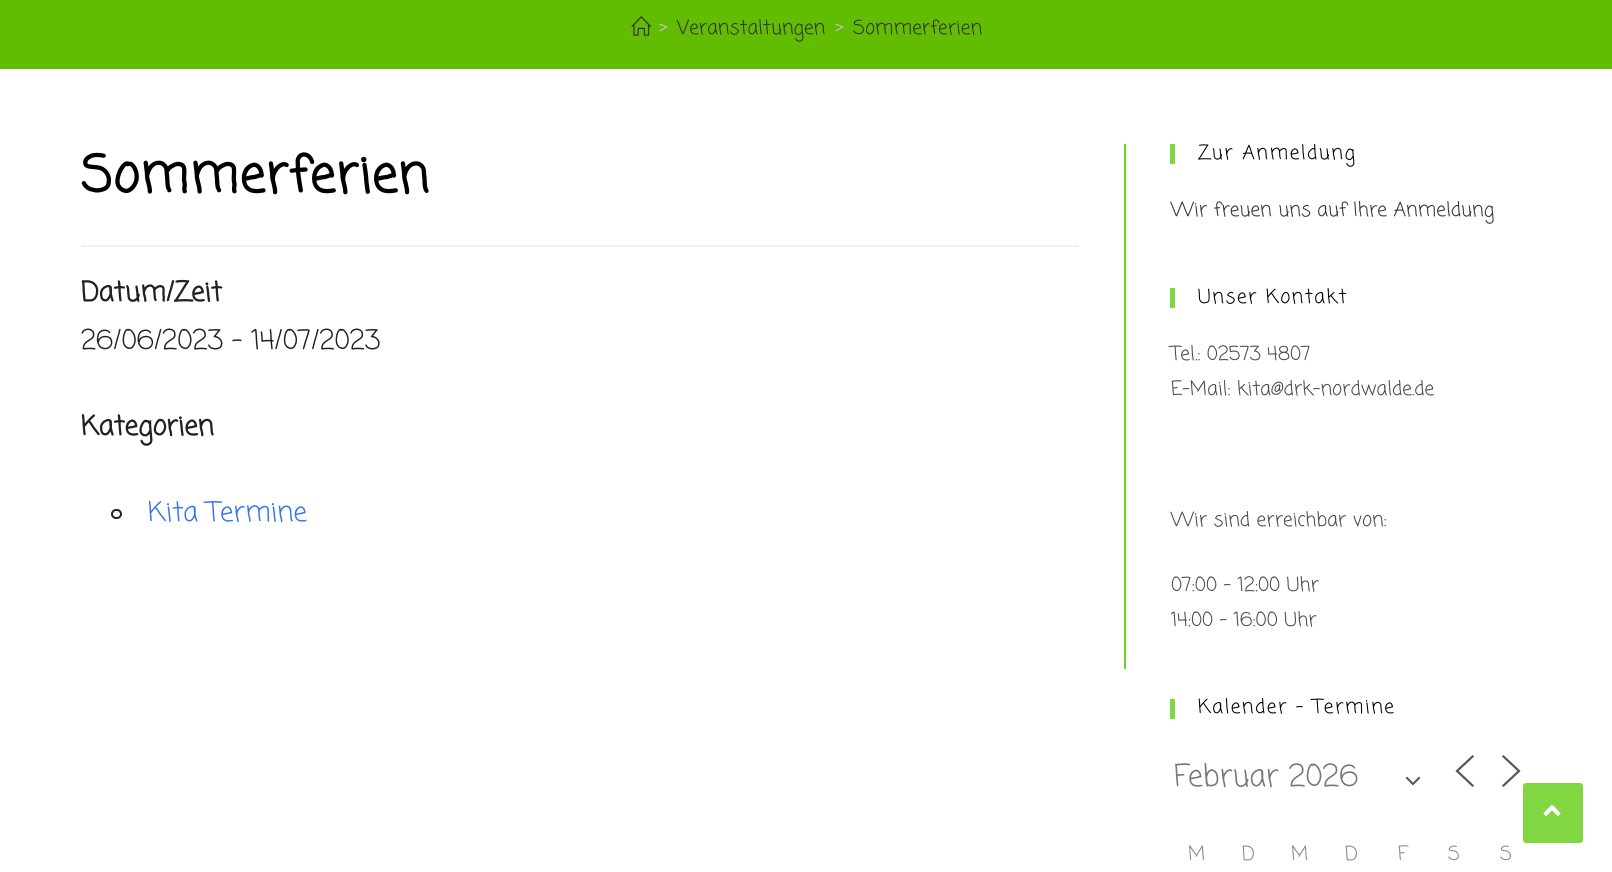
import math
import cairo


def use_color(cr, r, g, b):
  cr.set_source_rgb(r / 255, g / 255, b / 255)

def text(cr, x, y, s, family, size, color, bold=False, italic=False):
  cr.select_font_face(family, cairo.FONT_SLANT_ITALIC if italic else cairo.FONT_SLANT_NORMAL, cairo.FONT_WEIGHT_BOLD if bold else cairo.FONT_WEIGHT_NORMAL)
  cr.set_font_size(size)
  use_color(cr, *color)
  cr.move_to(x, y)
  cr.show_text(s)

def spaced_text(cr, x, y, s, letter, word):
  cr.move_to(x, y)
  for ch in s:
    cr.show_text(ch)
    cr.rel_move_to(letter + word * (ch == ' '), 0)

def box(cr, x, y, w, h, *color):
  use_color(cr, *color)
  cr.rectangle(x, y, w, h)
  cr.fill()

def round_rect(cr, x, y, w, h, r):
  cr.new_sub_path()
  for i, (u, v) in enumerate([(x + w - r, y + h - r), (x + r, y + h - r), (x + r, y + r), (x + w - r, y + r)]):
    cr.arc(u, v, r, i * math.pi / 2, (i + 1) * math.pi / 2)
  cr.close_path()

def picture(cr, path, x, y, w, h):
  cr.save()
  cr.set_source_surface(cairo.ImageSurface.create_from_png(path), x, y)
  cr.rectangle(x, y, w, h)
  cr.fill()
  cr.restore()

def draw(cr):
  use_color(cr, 255, 255, 255)
  cr.paint()
  box(cr, 0, 0, 1612, 69, 98, 188, 1)
  picture(cr, "img_01.png", 631, 16, 20, 20)
  box(cr, 1124, 144, 2, 525, 104, 214, 25)
  box(cr, 81, 245, 998, 2, 241, 241, 241)
  round_rect(cr, 112, 510, 9, 8, 4)
  use_color(cr, 33, 33, 33)
  cr.stroke()
  box(cr, 1170, 144, 5, 20, 129, 215, 66)
  box(cr, 1170, 288, 5, 20, 129, 215, 66)
  box(cr, 1170, 699, 5, 20, 129, 215, 66)
  cr.new_path()
  cr.move_to(1407, 778)
  cr.line_to(1413, 784)
  cr.line_to(1419, 778)
  use_color(cr, 85, 85, 85)
  cr.set_line_cap(cairo.LINE_CAP_SQUARE)
  cr.stroke()
  cr.new_path()
  cr.move_to(1472.5, 785.5)
  cr.line_to(1457, 771)
  cr.line_to(1472.5, 756.5)
  cr.set_line_width(2.2)
  cr.stroke()
  cr.new_path()
  cr.move_to(1503.5, 785.5)
  cr.line_to(1519, 771)
  cr.line_to(1503.5, 756.5)
  cr.stroke()
  use_color(cr, 129, 215, 66)
  round_rect(cr, 1523, 783, 60, 60, 3)
  cr.fill()
  picture(cr, "img_02.png", 1543, 805, 18, 11)
  text(cr, 659, 34, ">", "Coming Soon", 19.5, (198, 198, 198))
  text(cr, 677, 34, "Veranstaltungen", "Coming Soon", 19.5, (51, 51, 51))
  text(cr, 835, 34, ">", "Coming Soon", 19.5, (198, 198, 198))
  text(cr, 853, 34, "Sommerferien", "Coming Soon", 19.5, (51, 51, 51))
  cr.select_font_face("Coming Soon", cairo.FONT_SLANT_NORMAL, cairo.FONT_WEIGHT_BOLD)
  cr.set_font_size(51)
  use_color(cr, 0, 0, 0)
  spaced_text(cr, 81, 192, "Sommerferien", 0.9, 0)
  text(cr, 81, 301, "Datum/Zeit", "Coming Soon", 27, (33, 33, 33), bold=True)
  text(cr, 81, 349, "26/06/2023 - 14/07/2023", "Coming Soon", 27, (33, 33, 33))
  text(cr, 81, 435, "Kategorien", "Coming Soon", 27, (33, 33, 33), bold=True)
  text(cr, 148, 521, "Kita Termine", "Coming Soon", 27, (51, 114, 240))
  cr.set_font_size(19.5)
  use_color(cr, 0, 0, 0)
  spaced_text(cr, 1198, 159, "Zur Anmeldung", 1.5, 0)
  text(cr, 1171, 216, "Wir freuen uns auf Ihre Anmeldung", "Coming Soon", 19.5, (51, 51, 51))
  use_color(cr, 0, 0, 0)
  spaced_text(cr, 1198, 303, "Unser Kontakt", 1.5, 0)
  text(cr, 1171, 360, "Tel.: 02573 4807", "Coming Soon", 19.5, (74, 74, 74))
  text(cr, 1171, 395, "E-Mail: kita@drk-nordwalde.de", "Coming Soon", 19.5, (74, 74, 74))
  text(cr, 1171, 526, "Wir sind erreichbar von:", "Coming Soon", 19.5, (74, 74, 74))
  text(cr, 1171, 591, "07:00 – 12:00 Uhr", "Coming Soon", 19.5, (74, 74, 74))
  text(cr, 1171, 626, "14:00 – 16:00 Uhr", "Coming Soon", 19.5, (74, 74, 74))
  use_color(cr, 0, 0, 0)
  spaced_text(cr, 1198, 713, "Kalender – Termine", 1.5, 0)
  text(cr, 1174, 786, "Februar 2026", "Coming Soon", 30, (119, 119, 119))
  text(cr, 1188, 860, "M", "Coming Soon", 19.5, (136, 136, 136))
  text(cr, 1242, 860, "D", "Coming Soon", 19.5, (136, 136, 136))
  text(cr, 1291, 860, "M", "Coming Soon", 19.5, (136, 136, 136))
  text(cr, 1345, 860, "D", "Coming Soon", 19.5, (136, 136, 136))
  text(cr, 1398, 860, "F", "Coming Soon", 19.5, (136, 136, 136))
  text(cr, 1448, 860, "S", "Coming Soon", 19.5, (136, 136, 136))
  text(cr, 1500, 860, "S", "Coming Soon", 19.5, (136, 136, 136))


surface = cairo.ImageSurface(cairo.FORMAT_RGB24, 1612, 872)
cr = cairo.Context(surface)
options = cairo.FontOptions()
options.set_hint_metrics(cairo.HINT_METRICS_OFF)
options.set_hint_style(cairo.HINT_STYLE_NONE)
cr.set_font_options(options)
cr.set_miter_limit(4)
draw(cr)
surface.write_to_png("out.png")
